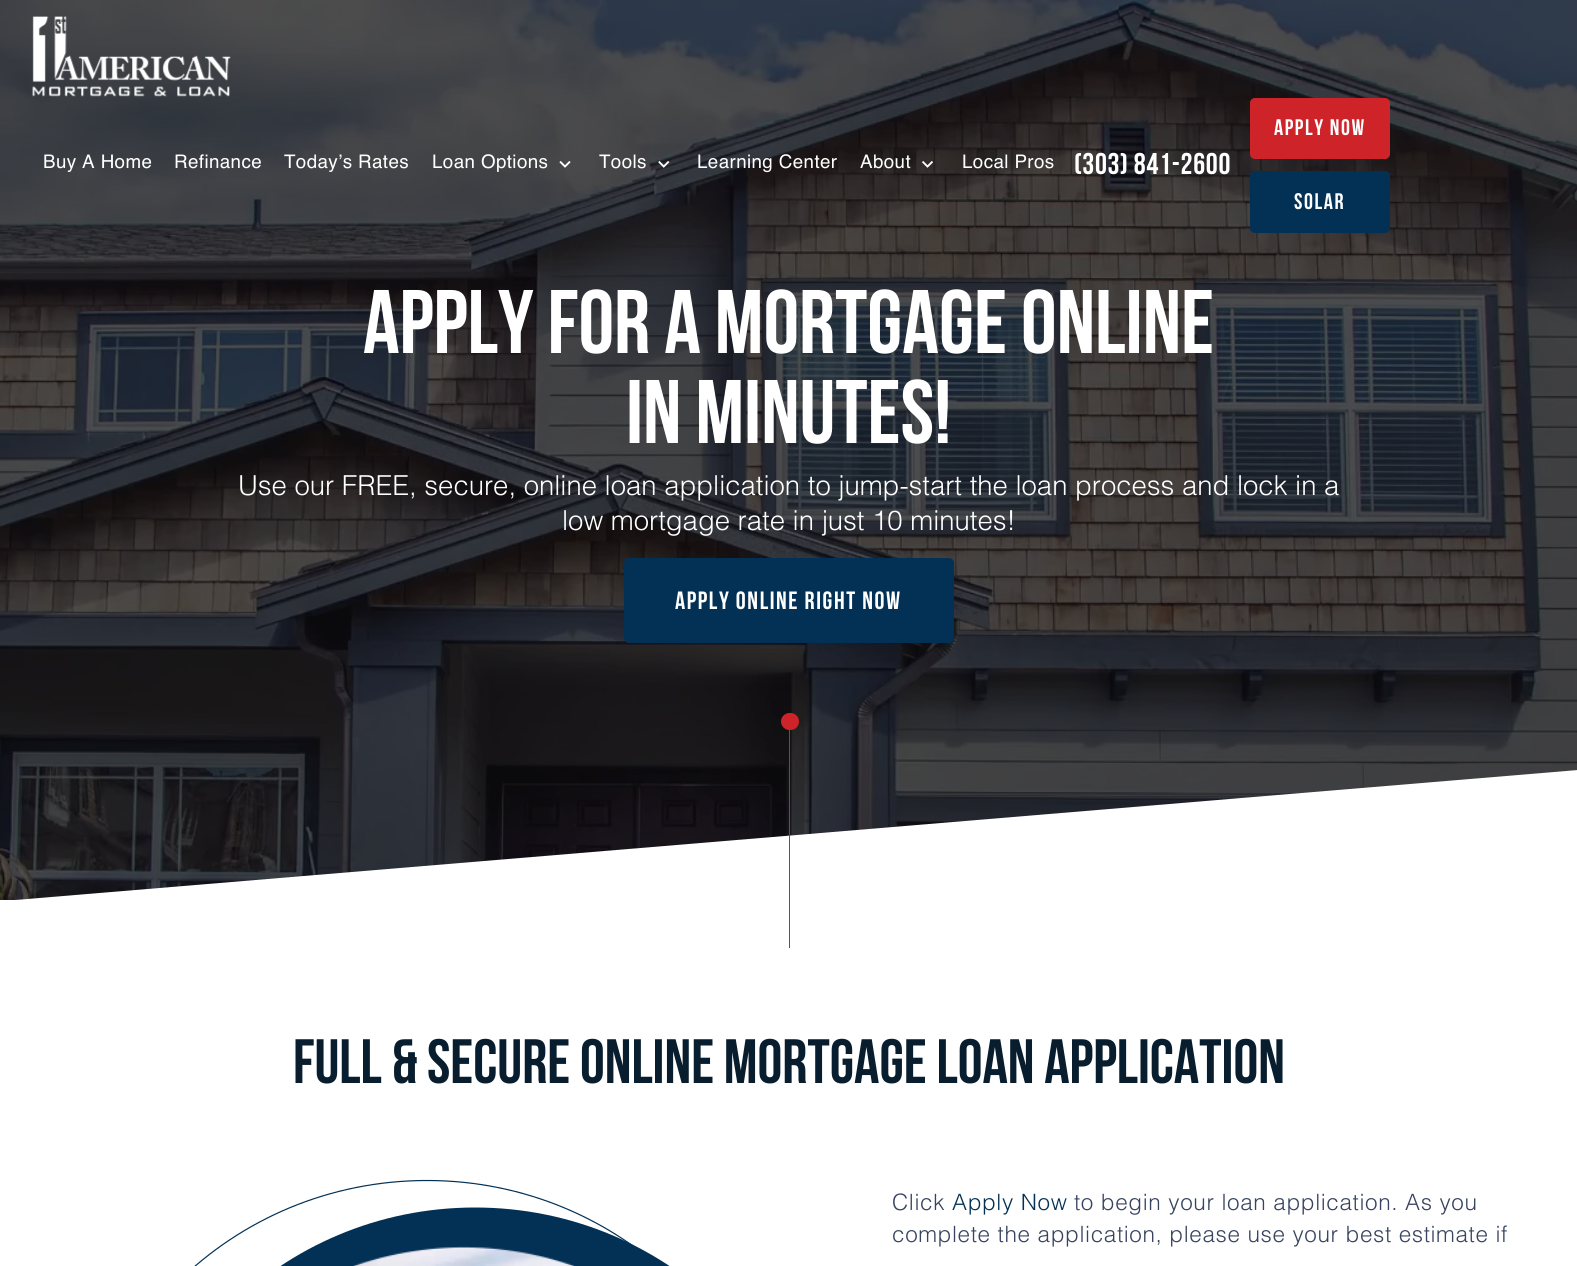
import math
import cairo


def use_color(cr, r, g, b):
  cr.set_source_rgb(r / 255, g / 255, b / 255)

def text(cr, x, y, s, family, size, color, bold=False, italic=False):
  cr.select_font_face(family, cairo.FONT_SLANT_ITALIC if italic else cairo.FONT_SLANT_NORMAL, cairo.FONT_WEIGHT_BOLD if bold else cairo.FONT_WEIGHT_NORMAL)
  cr.set_font_size(size)
  use_color(cr, *color)
  cr.move_to(x, y)
  cr.show_text(s)

def spaced_text(cr, x, y, s, letter, word):
  cr.move_to(x, y)
  for ch in s:
    cr.show_text(ch)
    cr.rel_move_to(letter + word * (ch == ' '), 0)

def box(cr, x, y, w, h, *color):
  use_color(cr, *color)
  cr.rectangle(x, y, w, h)
  cr.fill()

def round_rect(cr, x, y, w, h, r):
  cr.new_sub_path()
  for i, (u, v) in enumerate([(x + w - r, y + h - r), (x + r, y + h - r), (x + r, y + r), (x + w - r, y + r)]):
    cr.arc(u, v, r, i * math.pi / 2, (i + 1) * math.pi / 2)
  cr.close_path()

def picture(cr, path, x, y, w, h):
  cr.save()
  cr.set_source_surface(cairo.ImageSurface.create_from_png(path), x, y)
  cr.rectangle(x, y, w, h)
  cr.fill()
  cr.restore()

def draw(cr):
  use_color(cr, 255, 255, 255)
  cr.paint()
  box(cr, 0, 0, 1577, 900, 3, 3, 3)
  picture(cr, "img_05.png", 0, 0, 1577, 900)
  picture(cr, "img_01.png", 32, 16, 199, 81)
  picture(cr, "img_02.png", 559, 161, 12, 7)
  picture(cr, "img_03.png", 658, 161, 12, 7)
  picture(cr, "img_04.png", 922, 161, 11, 7)
  use_color(cr, 206, 35, 41)
  round_rect(cr, 1250.5, 98.5, 139, 60, 4.5)
  cr.fill_preserve()
  cr.set_line_width(1)
  cr.stroke()
  use_color(cr, 3, 49, 85)
  round_rect(cr, 1250.5, 171.5, 139, 61, 4.5)
  cr.fill_preserve()
  cr.stroke()
  cr.save()
  cr.rectangle(0, 770, 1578, 130)
  cr.clip()
  use_color(cr, 255, 255, 255)
  cr.new_path()
  cr.move_to(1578, 901)
  cr.line_to(3, 901)
  cr.line_to(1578, 770)
  cr.close_path()
  cr.fill()
  cr.restore()
  round_rect(cr, 624.5, 558.5, 329, 84, 4.5)
  cr.fill_preserve()
  cr.stroke()
  box(cr, 789, 730, 1, 218, 206, 35, 41)
  round_rect(cr, 781, 713, 18, 17, 8.5)
  cr.fill()
  cr.new_path()
  cr.move_to(427, 1180.5)
  cr.curve_to(621.5, 1180.5, 779.5, 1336, 779.5, 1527.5)
  cr.curve_to(779.5, 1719, 621.5, 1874.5, 427, 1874.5)
  cr.curve_to(232, 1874.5, 74.5, 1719, 74.5, 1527.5)
  cr.curve_to(74.5, 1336, 232, 1180.5, 427, 1180.5)
  cr.close_path()
  use_color(cr, 3, 49, 85)
  cr.set_line_width(1.2)
  cr.stroke()
  cr.new_path()
  cr.move_to(475, 1207.5)
  cr.curve_to(669, 1207.5, 826, 1364, 826, 1557.5)
  cr.curve_to(826, 1751, 669, 1907.5, 475, 1907.5)
  cr.curve_to(281, 1907.5, 124, 1751, 124, 1557.5)
  cr.curve_to(124, 1364, 281, 1207.5, 475, 1207.5)
  cr.close_path()
  cr.fill()
  picture(cr, "img_06.png", 353, 1246, 222, 20)
  cr.new_path()
  cr.move_to(789, 577.5)
  cr.line_to(790.5, 577.5)
  use_color(cr, 6, 47, 82)
  cr.set_line_width(3)
  cr.set_line_cap(cairo.LINE_CAP_ROUND)
  cr.stroke()
  cr.select_font_face("Helvetica")
  cr.set_font_size(18.75)
  use_color(cr, 255, 255, 255)
  spaced_text(cr, 43, 168, "Buy A Home", 0.4, 0)
  spaced_text(cr, 174, 168, "Refinance", 0.4, 0)
  spaced_text(cr, 284, 168, "Today’s Rates", 0.4, 0)
  spaced_text(cr, 432, 168, "Loan Options", 0.4, 0)
  spaced_text(cr, 599, 168, "Tools", 0.4, 0)
  spaced_text(cr, 697, 168, "Learning Center", 0.4, 0)
  spaced_text(cr, 860, 168, "About", 0.4, 0)
  spaced_text(cr, 962, 168, "Local Pros", 0.4, 0)
  cr.select_font_face("Bebas Neue", cairo.FONT_SLANT_NORMAL, cairo.FONT_WEIGHT_BOLD)
  cr.set_font_size(30)
  spaced_text(cr, 1074, 174, "(303) 841-2600", 0.75, 0)
  cr.set_font_size(22.5)
  spaced_text(cr, 1274, 135, "apply now", 1.6, 0)
  spaced_text(cr, 1294, 209, "SOLAR", 1.6, 0)
  text(cr, 363, 353, "Apply for a Mortgage Online", "Bebas Neue", 90, (255, 255, 255), bold=True)
  text(cr, 626, 443, "in Minutes!", "Bebas Neue", 90, (255, 255, 255), bold=True)
  text(cr, 238, 495, "Use our FREE, secure, online loan application to jump-start the loan process and lock in a", "Helvetica Light", 27.5, (255, 255, 255))
  text(cr, 562, 530, "low mortgage rate in just 10 minutes!", "Helvetica Light", 27.5, (255, 255, 255))
  cr.select_font_face("Bebas Neue", cairo.FONT_SLANT_NORMAL, cairo.FONT_WEIGHT_BOLD)
  cr.set_font_size(25)
  spaced_text(cr, 675, 609, "Apply Online Right Now", 1.6, 0)
  text(cr, 293, 1083, "Full & Secure Online Mortgage Loan Application", "Bebas Neue", 62.5, (8, 30, 46), bold=True)
  cr.select_font_face("Helvetica Light")
  cr.set_font_size(22.5)
  use_color(cr, 56, 68, 95)
  spaced_text(cr, 892, 1210, "Click", 0.62, 0)
  use_color(cr, 3, 49, 85)
  spaced_text(cr, 952, 1210, "Apply Now", 0.62, 0)
  use_color(cr, 56, 68, 95)
  spaced_text(cr, 1074, 1210, "to begin your loan application. As you", 0.62, 0)
  spaced_text(cr, 892, 1242, "complete the application, please use your best estimate if", 0.62, 0)
  picture(cr, "img_07.png", 782, 595, 13, 21)


surface = cairo.ImageSurface(cairo.FORMAT_RGB24, 1577, 1266)
cr = cairo.Context(surface)
options = cairo.FontOptions()
options.set_hint_metrics(cairo.HINT_METRICS_OFF)
options.set_hint_style(cairo.HINT_STYLE_NONE)
cr.set_font_options(options)
cr.set_miter_limit(4)
draw(cr)
surface.write_to_png("out.png")
